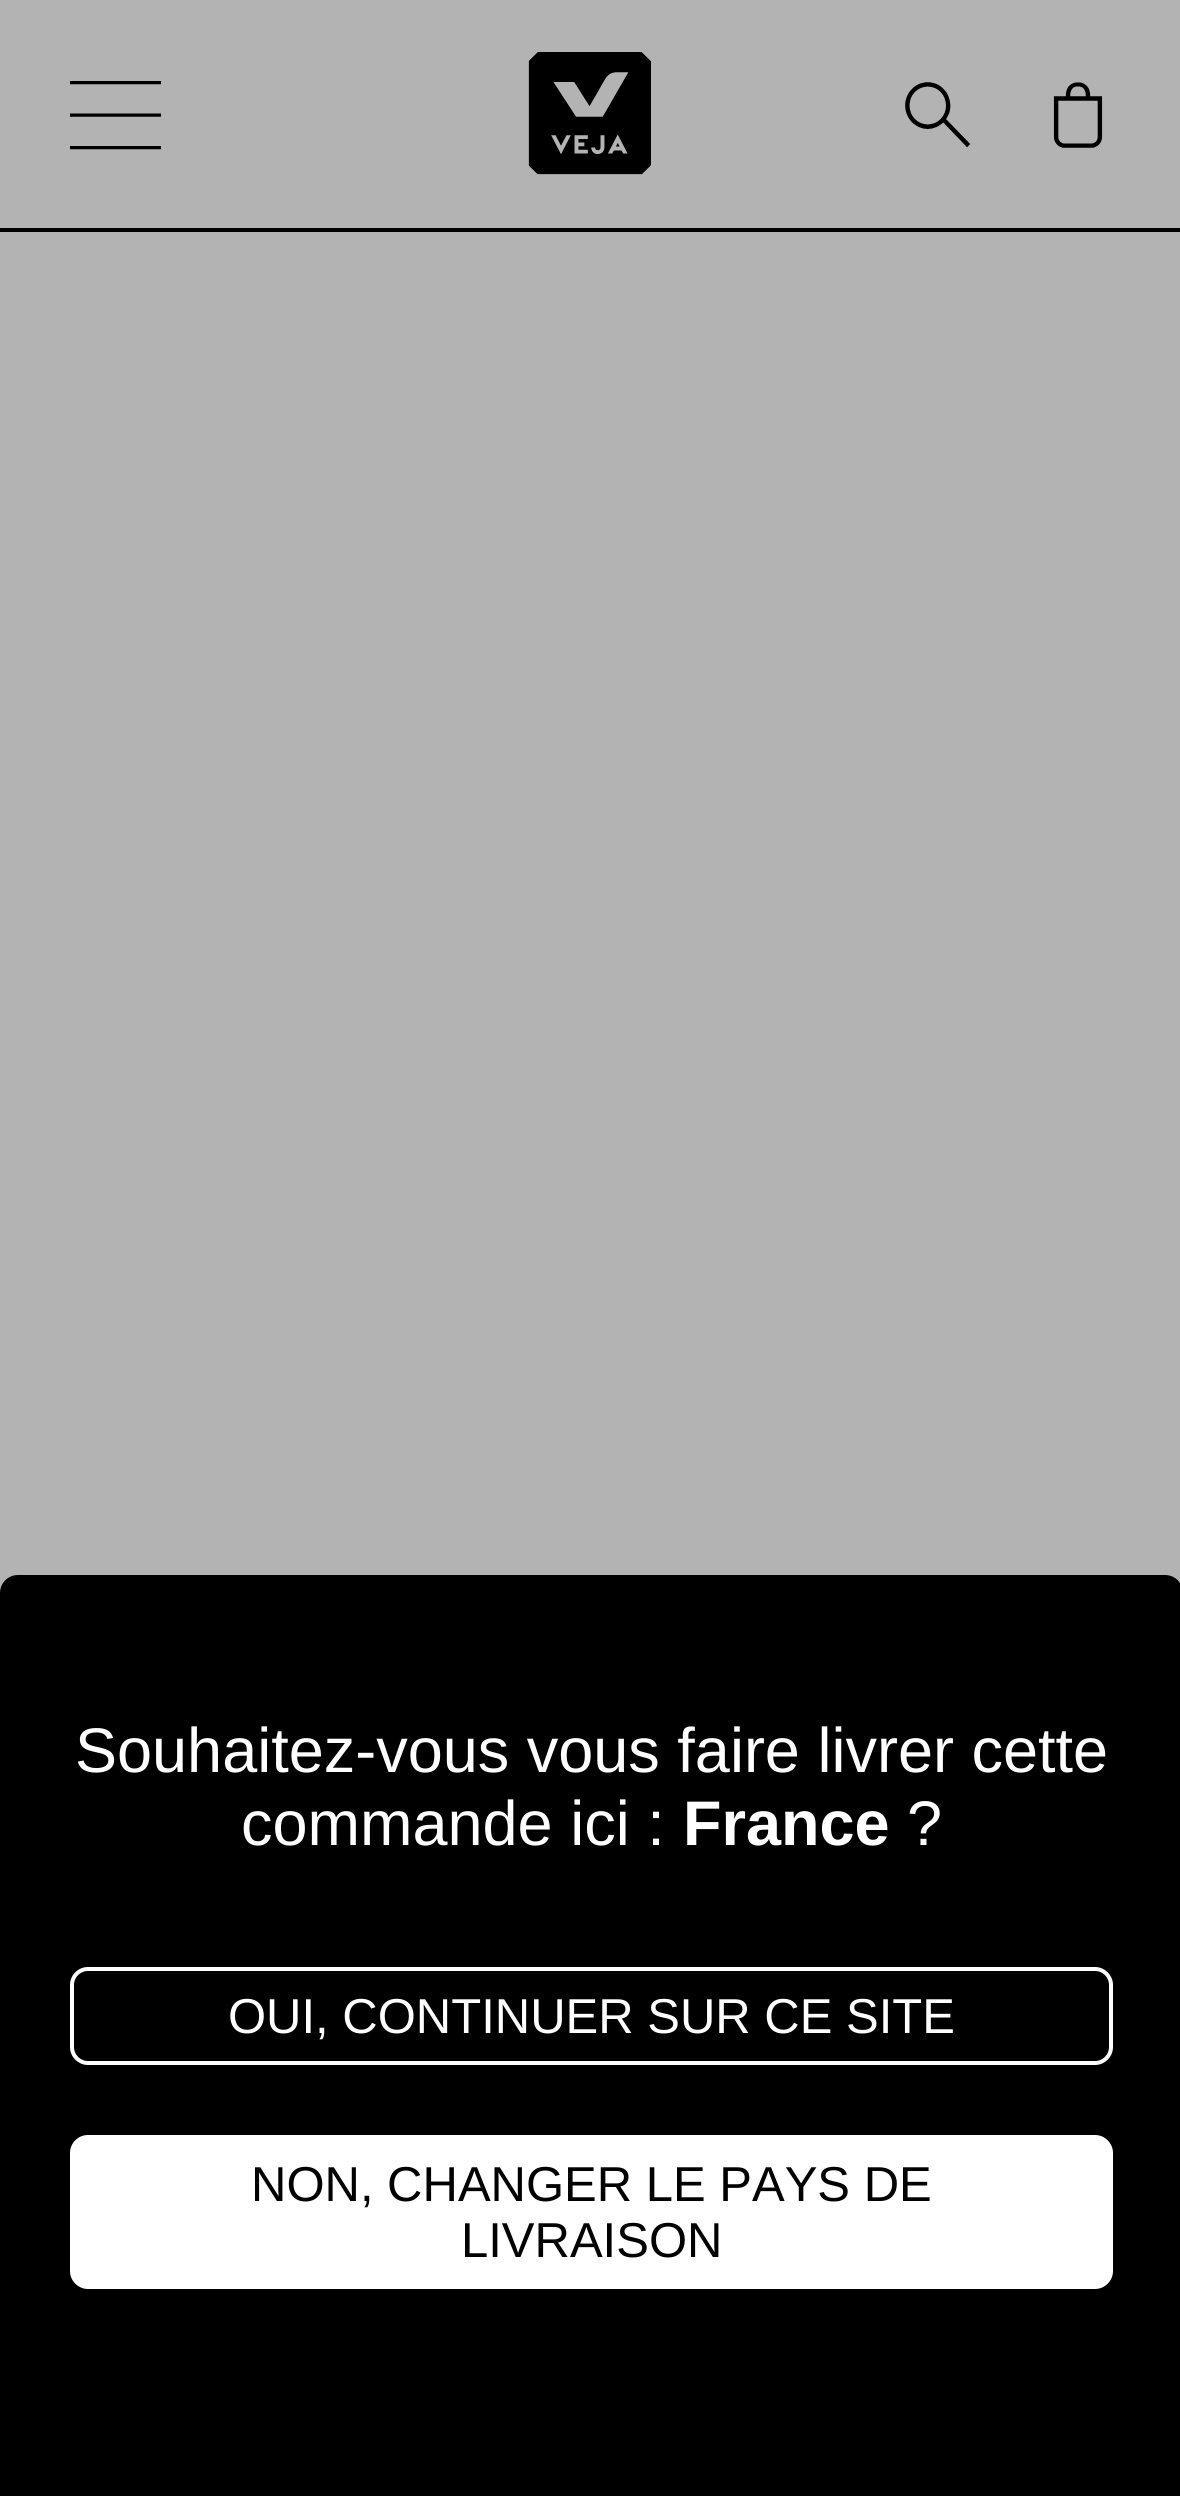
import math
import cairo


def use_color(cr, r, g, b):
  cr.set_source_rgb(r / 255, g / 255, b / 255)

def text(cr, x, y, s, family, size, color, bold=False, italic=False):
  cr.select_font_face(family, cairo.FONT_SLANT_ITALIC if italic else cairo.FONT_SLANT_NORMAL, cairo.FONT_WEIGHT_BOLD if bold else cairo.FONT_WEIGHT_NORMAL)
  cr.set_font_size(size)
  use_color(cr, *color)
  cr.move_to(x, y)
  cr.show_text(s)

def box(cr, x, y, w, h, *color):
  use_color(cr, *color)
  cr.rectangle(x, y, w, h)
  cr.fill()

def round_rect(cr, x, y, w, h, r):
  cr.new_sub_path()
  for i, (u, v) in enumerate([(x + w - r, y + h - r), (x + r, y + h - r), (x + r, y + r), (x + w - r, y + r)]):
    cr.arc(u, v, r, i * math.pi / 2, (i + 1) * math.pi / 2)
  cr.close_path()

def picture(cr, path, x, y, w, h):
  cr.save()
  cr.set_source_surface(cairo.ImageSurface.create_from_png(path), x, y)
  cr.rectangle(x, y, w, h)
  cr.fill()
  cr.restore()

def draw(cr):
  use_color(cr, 179, 179, 179)
  cr.paint()
  box(cr, 0, 228, 1180, 4, 0, 0, 0)
  picture(cr, "img_01.png", 70, 81, 91, 69)
  picture(cr, "img_02.png", 528, 52, 123, 123)
  picture(cr, "img_03.png", 905, 82, 65, 66)
  picture(cr, "img_04.png", 1053, 82, 50, 66)
  cr.new_path()
  cr.move_to(18, 1575)
  cr.line_to(1165, 1575)
  cr.curve_to(1175, 1575, 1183, 1583, 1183, 1593)
  cr.line_to(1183, 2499)
  cr.line_to(0, 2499)
  cr.line_to(0, 1593)
  cr.curve_to(0, 1583, 8, 1575, 18, 1575)
  cr.close_path()
  cr.fill()
  round_rect(cr, 72, 1969, 1039, 94, 16)
  use_color(cr, 255, 255, 255)
  cr.set_line_width(4)
  cr.stroke()
  round_rect(cr, 72, 2137, 1039, 150, 16)
  cr.fill_preserve()
  cr.stroke()
  text(cr, 75, 1772, "Souhaitez-vous vous faire livrer cette", "Liberation Sans", 63, (255, 255, 255))
  text(cr, 241, 1845, "commande ici :", "Liberation Sans", 63, (255, 255, 255))
  text(cr, 683, 1845, "France", "Liberation Sans", 63, (255, 255, 255), bold=True)
  text(cr, 907, 1845, "?", "Liberation Sans", 63, (255, 255, 255))
  text(cr, 228, 2033, "OUI, CONTINUER SUR CE SITE", "Liberation Sans", 49, (255, 255, 255))
  text(cr, 251, 2201, "NON, CHANGER LE PAYS DE", "Liberation Sans", 49, (0, 0, 0))
  text(cr, 461, 2257, "LIVRAISON", "Liberation Sans", 49, (0, 0, 0))


surface = cairo.ImageSurface(cairo.FORMAT_RGB24, 1180, 2496)
cr = cairo.Context(surface)
options = cairo.FontOptions()
options.set_hint_metrics(cairo.HINT_METRICS_OFF)
options.set_hint_style(cairo.HINT_STYLE_NONE)
cr.set_font_options(options)
cr.set_miter_limit(4)
draw(cr)
surface.write_to_png("out.png")
